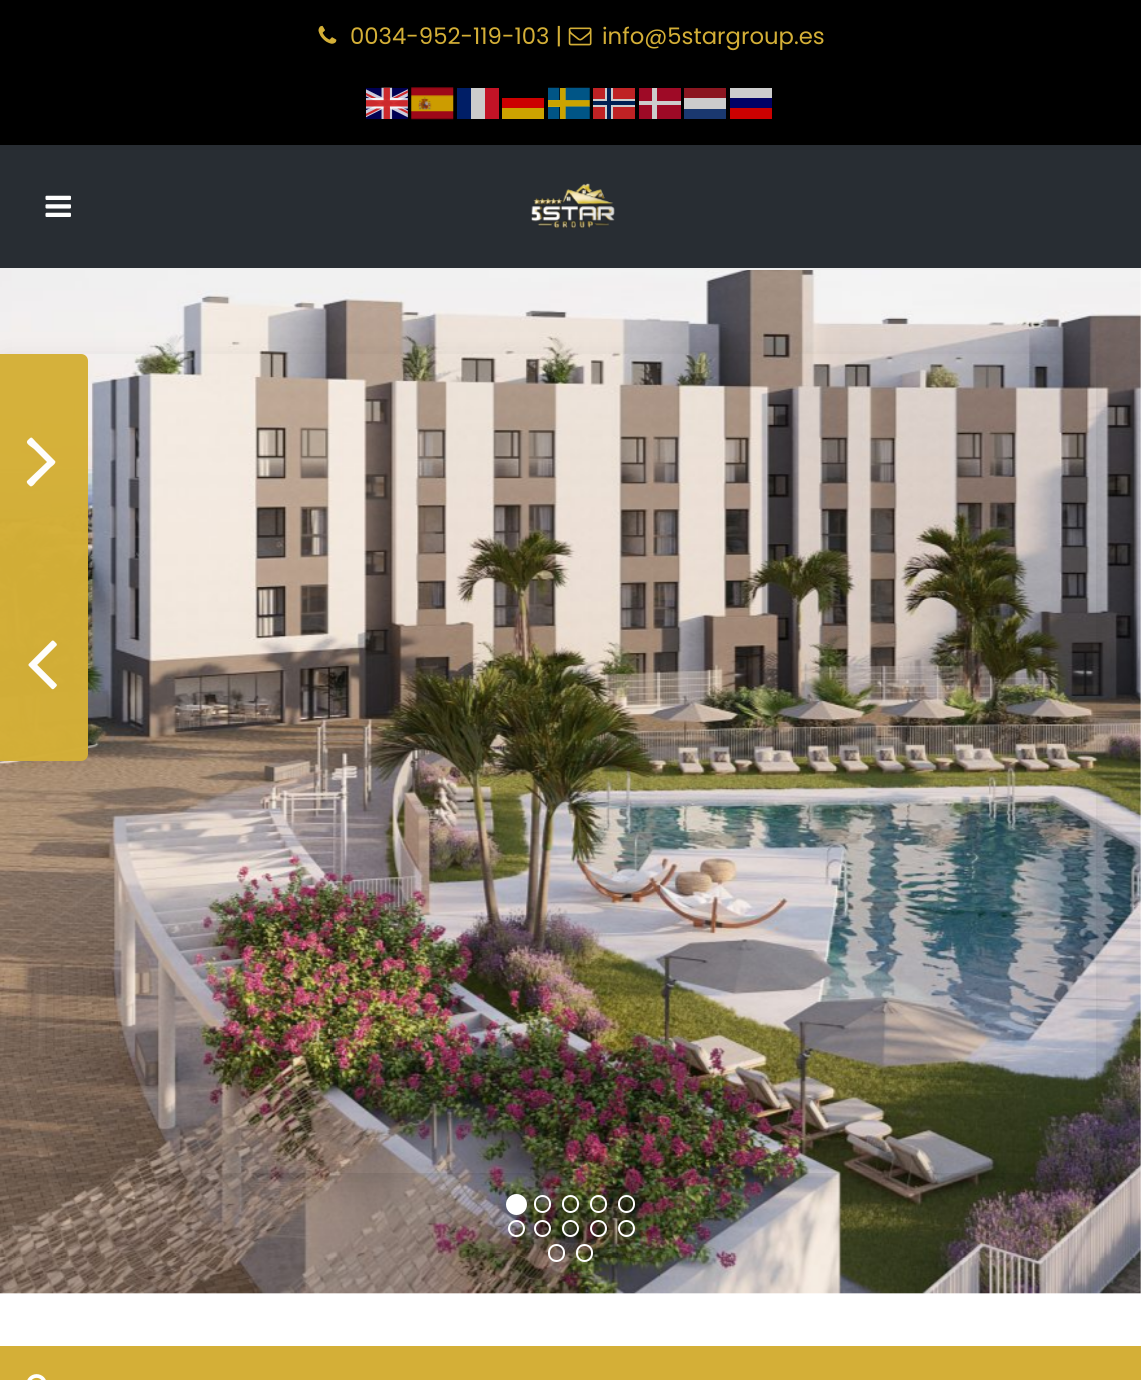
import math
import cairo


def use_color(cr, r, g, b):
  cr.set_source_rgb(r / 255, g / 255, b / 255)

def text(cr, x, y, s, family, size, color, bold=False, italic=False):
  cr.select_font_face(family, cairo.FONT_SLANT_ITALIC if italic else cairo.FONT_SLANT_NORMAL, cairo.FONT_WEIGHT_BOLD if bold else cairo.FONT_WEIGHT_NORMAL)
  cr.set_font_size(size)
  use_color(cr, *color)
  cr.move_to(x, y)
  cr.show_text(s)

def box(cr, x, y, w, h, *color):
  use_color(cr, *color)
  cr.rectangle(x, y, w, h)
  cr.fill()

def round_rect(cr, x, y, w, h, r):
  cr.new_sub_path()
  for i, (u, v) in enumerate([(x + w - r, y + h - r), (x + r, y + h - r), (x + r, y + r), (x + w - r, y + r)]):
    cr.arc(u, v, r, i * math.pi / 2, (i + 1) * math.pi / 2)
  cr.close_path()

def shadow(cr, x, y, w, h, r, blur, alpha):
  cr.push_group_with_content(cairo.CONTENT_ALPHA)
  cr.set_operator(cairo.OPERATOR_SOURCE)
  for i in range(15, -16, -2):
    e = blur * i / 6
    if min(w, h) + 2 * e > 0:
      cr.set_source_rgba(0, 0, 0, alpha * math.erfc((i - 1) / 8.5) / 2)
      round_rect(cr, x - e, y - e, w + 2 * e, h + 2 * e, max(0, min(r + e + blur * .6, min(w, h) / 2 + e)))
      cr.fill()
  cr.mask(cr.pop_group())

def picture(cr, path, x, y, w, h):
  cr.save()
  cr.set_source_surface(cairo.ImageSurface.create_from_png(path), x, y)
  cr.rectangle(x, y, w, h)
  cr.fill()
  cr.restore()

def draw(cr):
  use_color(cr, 255, 255, 255)
  cr.paint()
  box(cr, 0, 0, 1141, 145, 0, 0, 0)
  box(cr, 0, 268, 1141, 2, 240, 240, 240)
  picture(cr, "img_01.png", 318, 25, 19, 19)
  picture(cr, "img_02.png", 568, 27, 24, 19)
  picture(cr, "img_03.png", 366, 87, 42, 32)
  picture(cr, "img_04.png", 411, 87, 43, 33)
  box(cr, 457, 88, 14, 31, 0, 30, 102)
  box(cr, 471, 88, 14, 31, 204, 204, 204)
  box(cr, 485, 88, 14, 31, 194, 19, 38)
  picture(cr, "img_05.png", 548, 87, 42, 32)
  box(cr, 593, 88, 42, 31, 191, 34, 36)
  box(cr, 605, 88, 8, 31, 204, 204, 204)
  box(cr, 593, 99, 42, 8, 204, 204, 204)
  box(cr, 607, 88, 4, 31, 0, 32, 83)
  box(cr, 639, 88, 42, 31, 158, 10, 38)
  box(cr, 652, 88, 5, 31, 204, 204, 204)
  box(cr, 684, 88, 42, 10, 139, 22, 32)
  box(cr, 730, 88, 42, 10, 204, 204, 204)
  box(cr, 502, 98, 42, 10, 204, 0, 0)
  box(cr, 684, 98, 42, 11, 204, 204, 204)
  box(cr, 730, 98, 42, 10, 1, 1, 101)
  box(cr, 593, 101, 42, 4, 0, 32, 83)
  box(cr, 639, 101, 42, 4, 204, 204, 204)
  box(cr, 502, 108, 42, 11, 204, 163, 0)
  box(cr, 684, 109, 42, 10, 26, 56, 111)
  box(cr, 730, 108, 42, 11, 203, 1, 1)
  box(cr, 0, 145, 1141, 123, 40, 45, 51)
  picture(cr, "img_06.png", 45, 195, 26, 22)
  picture(cr, "img_07.png", 531, 183, 84, 46)
  picture(cr, "img_08.png", 0, 270, 1141, 1024)
  cr.save()
  cr.set_fill_rule(cairo.FILL_RULE_EVEN_ODD)
  cr.new_path()
  cr.move_to(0, 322)
  cr.line_to(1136, 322)
  cr.line_to(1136, 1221)
  cr.line_to(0, 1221)
  cr.close_path()
  cr.move_to(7, 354)
  cr.line_to(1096, 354)
  cr.line_to(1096, 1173)
  cr.line_to(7, 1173)
  cr.curve_to(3, 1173, 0, 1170, 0, 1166)
  cr.line_to(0, 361)
  cr.curve_to(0, 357, 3, 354, 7, 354)
  cr.close_path()
  cr.clip()
  use_color(cr, 0, 0, 0)
  shadow(cr, 0, 362, 1096, 819, 7, 13, 0.1)
  cr.restore()
  cr.set_source_rgba(0.831, 0.686, 0.216, 0.98)
  cr.new_path()
  cr.move_to(0, 354)
  cr.line_to(81, 354)
  cr.curve_to(85, 354, 88, 357, 88, 361)
  cr.line_to(88, 557)
  cr.line_to(0, 557)
  cr.close_path()
  cr.fill()
  use_color(cr, 254, 253, 251)
  cr.new_path()
  cr.move_to(55, 461)
  cr.curve_to(57, 463, 51, 467, 51, 467)
  cr.line_to(36, 482)
  cr.curve_to(36, 482, 32, 488, 30, 486)
  cr.curve_to(29, 485, 26, 483, 27, 481)
  cr.line_to(47, 462)
  cr.line_to(34, 449)
  cr.curve_to(29, 445, 24, 443, 29, 439)
  cr.curve_to(32, 436, 32, 438, 36, 442)
  cr.close_path()
  cr.fill()
  cr.set_source_rgba(0.831, 0.686, 0.216, 0.98)
  cr.new_path()
  cr.move_to(0, 557)
  cr.line_to(88, 557)
  cr.line_to(88, 754)
  cr.curve_to(88, 758, 85, 761, 81, 761)
  cr.line_to(0, 761)
  cr.close_path()
  cr.fill()
  picture(cr, "img_09.png", 28, 640, 29, 50)
  use_color(cr, 255, 255, 255)
  cr.arc(516.5, 1204.5, 9.5, 0, 2 * math.pi)
  cr.fill_preserve()
  cr.stroke()
  round_rect(cr, 535, 1196, 15, 16, 7.5)
  cr.stroke()
  round_rect(cr, 563, 1196, 15, 16, 7.5)
  cr.stroke()
  round_rect(cr, 591, 1196, 15, 16, 7.5)
  cr.stroke()
  round_rect(cr, 619, 1196, 15, 16, 7.5)
  cr.stroke()
  cr.arc(516.5, 1228.5, 7.5, 0, 2 * math.pi)
  cr.stroke()
  cr.arc(542.5, 1228.5, 7.5, 0, 2 * math.pi)
  cr.stroke()
  cr.arc(570.5, 1228.5, 7.5, 0, 2 * math.pi)
  cr.stroke()
  cr.arc(598.5, 1228.5, 7.5, 0, 2 * math.pi)
  cr.stroke()
  cr.arc(626.5, 1228.5, 7.5, 0, 2 * math.pi)
  cr.stroke()
  round_rect(cr, 549, 1245, 15, 16, 7.5)
  cr.stroke()
  round_rect(cr, 577, 1245, 15, 16, 7.5)
  cr.stroke()
  box(cr, 0, 1346, 1141, 34, 212, 175, 55)
  picture(cr, "img_10.png", 27, 1374, 19, 6)
  text(cr, 350, 44, "0034-952-119-103 |", "Poppins", 22.75, (212, 175, 55))
  text(cr, 602, 44, "info@5stargroup.es", "Poppins", 22.75, (212, 175, 55))


surface = cairo.ImageSurface(cairo.FORMAT_RGB24, 1141, 1380)
cr = cairo.Context(surface)
options = cairo.FontOptions()
options.set_hint_metrics(cairo.HINT_METRICS_OFF)
options.set_hint_style(cairo.HINT_STYLE_NONE)
cr.set_font_options(options)
cr.set_miter_limit(4)
draw(cr)
surface.write_to_png("out.png")
